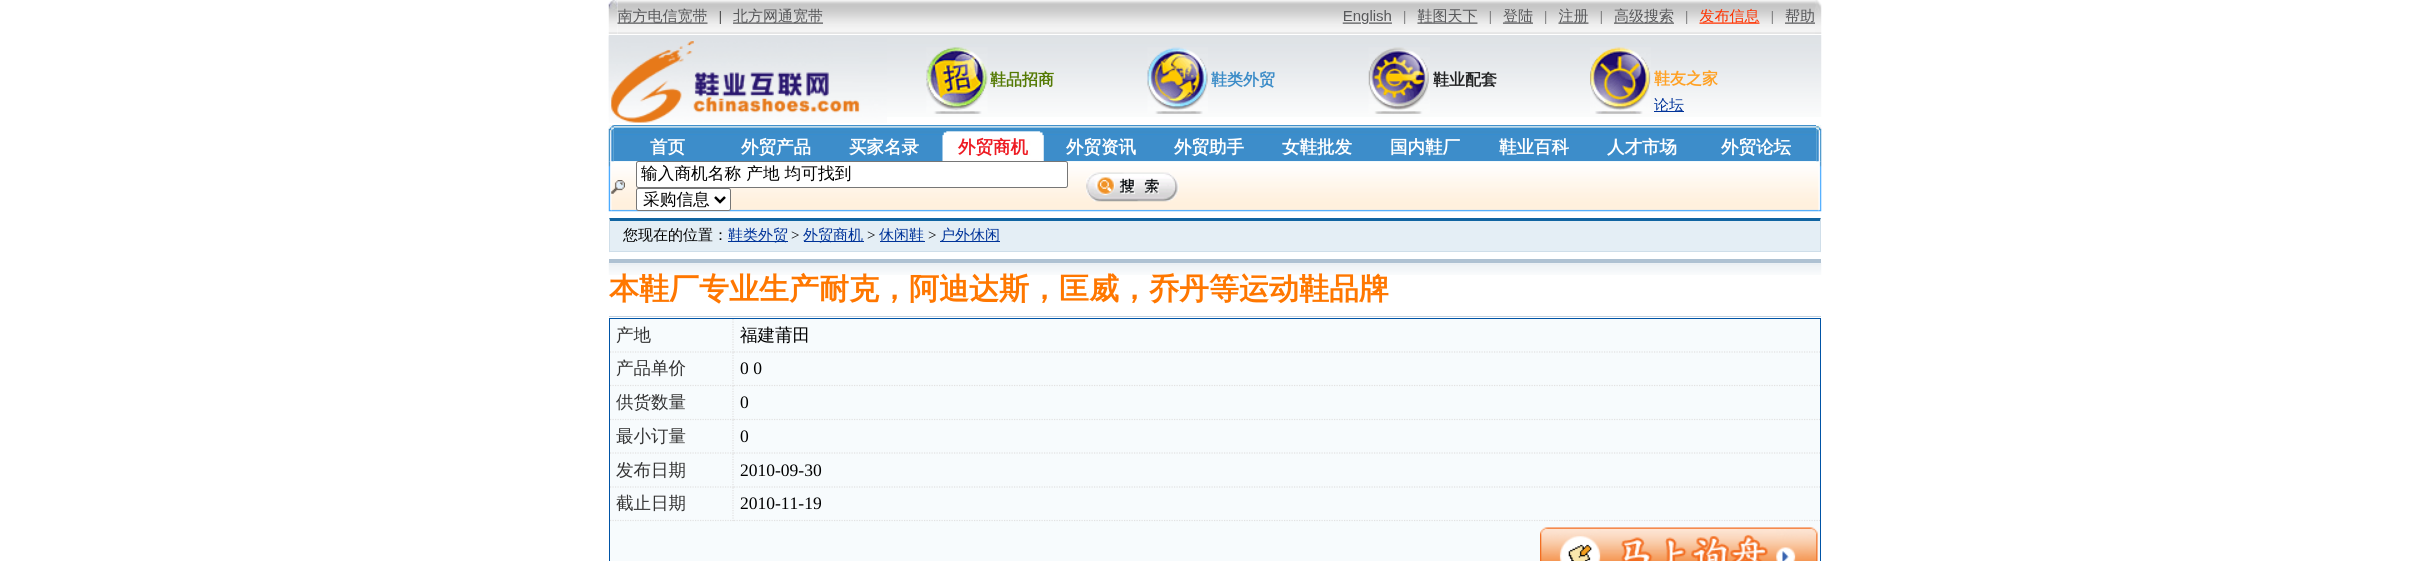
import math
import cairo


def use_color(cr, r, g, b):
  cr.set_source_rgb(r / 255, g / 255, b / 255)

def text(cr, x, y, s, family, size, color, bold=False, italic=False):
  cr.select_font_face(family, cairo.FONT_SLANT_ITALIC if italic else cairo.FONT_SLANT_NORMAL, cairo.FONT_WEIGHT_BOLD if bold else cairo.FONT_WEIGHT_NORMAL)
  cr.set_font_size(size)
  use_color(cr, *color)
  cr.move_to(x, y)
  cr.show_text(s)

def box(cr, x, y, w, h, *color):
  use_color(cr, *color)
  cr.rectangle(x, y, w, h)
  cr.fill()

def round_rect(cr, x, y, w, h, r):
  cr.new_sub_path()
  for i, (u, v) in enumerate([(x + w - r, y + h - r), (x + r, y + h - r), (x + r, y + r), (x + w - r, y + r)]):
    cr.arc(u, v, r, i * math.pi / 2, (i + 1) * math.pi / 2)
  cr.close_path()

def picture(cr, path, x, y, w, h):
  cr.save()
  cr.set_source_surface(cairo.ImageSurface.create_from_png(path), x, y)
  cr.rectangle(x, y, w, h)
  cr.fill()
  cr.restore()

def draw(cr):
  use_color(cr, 255, 255, 255)
  cr.paint()
  picture(cr, "img_01.png", 608, 0, 1214, 34)
  picture(cr, "img_02.png", 608, 35, 1214, 82)
  picture(cr, "img_03.png", 608, 36, 279, 87)
  picture(cr, "img_04.png", 926, 47, 62, 67)
  picture(cr, "img_05.png", 1147, 47, 61, 67)
  picture(cr, "img_06.png", 1368, 47, 62, 67)
  picture(cr, "img_07.png", 1590, 47, 61, 67)
  box(cr, 1654, 111, 30, 1, 0, 51, 153)
  picture(cr, "img_09.png", 613, 125, 1204, 37)
  picture(cr, "img_13.png", 611, 161, 1208, 51)
  picture(cr, "img_08.png", 608, 125, 6, 37)
  picture(cr, "img_10.png", 942, 129, 102, 32)
  picture(cr, "img_11.png", 1816, 125, 6, 37)
  picture(cr, "img_12.png", 608, 161, 4, 51)
  picture(cr, "img_14.png", 611, 180, 14, 14)
  use_color(cr, 255, 255, 255)
  round_rect(cr, 636.5, 161.5, 431, 26, 2)
  cr.fill_preserve()
  use_color(cr, 118, 118, 118)
  cr.set_line_width(1)
  cr.stroke()
  use_color(cr, 255, 255, 255)
  round_rect(cr, 636.5, 188.5, 94, 22, 2)
  cr.fill_preserve()
  use_color(cr, 118, 118, 118)
  cr.stroke()
  cr.new_path()
  cr.move_to(715, 197)
  cr.line_to(720, 202)
  cr.line_to(725, 197)
  use_color(cr, 0, 0, 0)
  cr.set_line_width(2.5)
  cr.stroke()
  picture(cr, "img_15.png", 1086, 172, 93, 30)
  picture(cr, "img_16.png", 1818, 161, 4, 51)
  box(cr, 610, 221, 1210, 30, 228, 238, 245)
  use_color(cr, 16, 100, 161)
  cr.new_path()
  cr.move_to(609, 218)
  cr.line_to(1821, 218)
  cr.line_to(1820, 221)
  cr.line_to(610, 221)
  cr.close_path()
  cr.fill()
  use_color(cr, 207, 222, 233)
  cr.new_path()
  cr.move_to(1821, 217.5)
  cr.line_to(1821, 252.5)
  cr.line_to(1820, 251)
  cr.line_to(1820, 221)
  cr.close_path()
  cr.fill()
  box(cr, 609, 251, 1212, 1, 207, 222, 233)
  cr.new_path()
  cr.move_to(609, 252.5)
  cr.line_to(609, 217.5)
  cr.line_to(610, 221)
  cr.line_to(610, 251)
  cr.close_path()
  cr.fill()
  box(cr, 728, 241, 60, 1, 0, 51, 153)
  box(cr, 804, 241, 60, 1, 0, 51, 153)
  box(cr, 880, 241, 45, 1, 0, 51, 153)
  box(cr, 940, 241, 60, 1, 0, 51, 153)
  picture(cr, "img_17.png", 608, 262, 1214, 13)
  box(cr, 609, 259, 1212, 4, 174, 193, 210)
  box(cr, 609, 316, 1212, 1, 199, 211, 223)
  use_color(cr, 247, 251, 253)
  cr.rectangle(609.5, 318.5, 1211, 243)
  cr.fill_preserve()
  use_color(cr, 0, 84, 166)
  cr.set_line_width(1)
  cr.stroke()
  cr.new_path()
  cr.move_to(733, 319)
  cr.line_to(733, 352.5)
  use_color(cr, 226, 226, 226)
  cr.set_line_width(1.2)
  cr.set_dash([1.25, 1.25])
  cr.stroke()
  cr.new_path()
  cr.move_to(610, 352)
  cr.line_to(734, 352)
  cr.stroke()
  cr.new_path()
  cr.move_to(734, 352)
  cr.line_to(1820, 352)
  cr.stroke()
  cr.new_path()
  cr.move_to(733, 352.5)
  cr.line_to(733, 386)
  cr.stroke()
  cr.new_path()
  cr.move_to(610, 385.5)
  cr.line_to(734, 385.5)
  cr.stroke()
  cr.new_path()
  cr.move_to(734, 385.5)
  cr.line_to(1820, 385.5)
  cr.stroke()
  cr.new_path()
  cr.move_to(733, 386)
  cr.line_to(733, 420)
  cr.stroke()
  cr.new_path()
  cr.move_to(610, 419.5)
  cr.line_to(734, 419.5)
  cr.stroke()
  cr.new_path()
  cr.move_to(734, 419.5)
  cr.line_to(1820, 419.5)
  cr.stroke()
  cr.new_path()
  cr.move_to(733, 420)
  cr.line_to(733, 454)
  cr.stroke()
  cr.new_path()
  cr.move_to(610, 453)
  cr.line_to(734, 453)
  cr.stroke()
  cr.new_path()
  cr.move_to(734, 453)
  cr.line_to(1820, 453)
  cr.stroke()
  cr.new_path()
  cr.move_to(733, 454)
  cr.line_to(733, 487.5)
  cr.stroke()
  cr.new_path()
  cr.move_to(610, 487)
  cr.line_to(734, 487)
  cr.stroke()
  cr.new_path()
  cr.move_to(734, 487)
  cr.line_to(1820, 487)
  cr.stroke()
  cr.new_path()
  cr.move_to(733, 487.5)
  cr.line_to(733, 521)
  cr.stroke()
  cr.new_path()
  cr.move_to(610, 520.5)
  cr.line_to(734, 520.5)
  cr.stroke()
  cr.new_path()
  cr.move_to(734, 520.5)
  cr.line_to(1820, 520.5)
  cr.stroke()
  picture(cr, "img_18.png", 1540, 527, 278, 34)
  text(cr, 990, 85, "鞋品招商", "WenQuanYi Zen Hei", 16, (84, 122, 4), bold=True)
  text(cr, 1211, 85, "鞋类外贸", "WenQuanYi Zen Hei", 16, (61, 141, 200), bold=True)
  text(cr, 1433, 85, "鞋业配套", "WenQuanYi Zen Hei", 16, (33, 34, 35), bold=True)
  text(cr, 1654, 84, "鞋友之家", "WenQuanYi Zen Hei", 16, (255, 161, 36), bold=True)
  text(cr, 1654, 110, "论坛", "WenQuanYi Zen Hei Medium", 15, (0, 51, 153))
  text(cr, 650, 153, "首页", "WenQuanYi Zen Hei", 17.5, (255, 255, 255), bold=True)
  text(cr, 741, 153, "外贸产品", "WenQuanYi Zen Hei", 17.5, (255, 255, 255), bold=True)
  text(cr, 849, 153, "买家名录", "WenQuanYi Zen Hei", 17.5, (255, 255, 255), bold=True)
  text(cr, 958, 153, "外贸商机", "WenQuanYi Zen Hei", 17.5, (237, 27, 35), bold=True)
  text(cr, 1066, 153, "外贸资讯", "WenQuanYi Zen Hei", 17.5, (255, 255, 255), bold=True)
  text(cr, 1174, 153, "外贸助手", "WenQuanYi Zen Hei", 17.5, (255, 255, 255), bold=True)
  text(cr, 1282, 153, "女鞋批发", "WenQuanYi Zen Hei", 17.5, (255, 255, 255), bold=True)
  text(cr, 1390, 153, "国内鞋厂", "WenQuanYi Zen Hei", 17.5, (255, 255, 255), bold=True)
  text(cr, 1499, 153, "鞋业百科", "WenQuanYi Zen Hei", 17.5, (255, 255, 255), bold=True)
  text(cr, 1607, 153, "人才市场", "WenQuanYi Zen Hei", 17.5, (255, 255, 255), bold=True)
  text(cr, 1721, 153, "外贸论坛", "WenQuanYi Zen Hei", 17.5, (255, 255, 255), bold=True)
  text(cr, 641, 179, "输入商机名称 产地 均可找到", "WenQuanYi Zen Hei Medium", 16.7, (0, 0, 0))
  text(cr, 643, 205, "采购信息", "WenQuanYi Zen Hei Medium", 16.7, (0, 0, 0))
  text(cr, 623, 240, "您现在的位置：", "WenQuanYi Zen Hei Medium", 15, (0, 0, 0))
  text(cr, 728, 240, "鞋类外贸", "WenQuanYi Zen Hei Medium", 15, (0, 51, 153))
  text(cr, 791, 240, ">", "Liberation Serif", 15, (0, 0, 0))
  text(cr, 803, 240, "外贸商机", "WenQuanYi Zen Hei Medium", 15, (0, 51, 153))
  text(cr, 867, 240, ">", "Liberation Serif", 15, (0, 0, 0))
  text(cr, 879, 240, "休闲鞋", "WenQuanYi Zen Hei Medium", 15, (0, 51, 153))
  text(cr, 928, 240, ">", "Liberation Serif", 15, (0, 0, 0))
  text(cr, 940, 240, "户外休闲", "WenQuanYi Zen Hei Medium", 15, (0, 51, 153))
  text(cr, 609, 299, "本鞋厂专业生产耐克，阿迪达斯，匡威，乔丹等运动鞋品牌", "WenQuanYi Zen Hei", 30, (255, 119, 0), bold=True)
  text(cr, 616, 341, "产地", "WenQuanYi Zen Hei Medium", 17.5, (51, 51, 51))
  text(cr, 740, 341, "福建莆田", "WenQuanYi Zen Hei Medium", 17.5, (0, 0, 0))
  text(cr, 616, 374, "产品单价", "WenQuanYi Zen Hei Medium", 17.5, (51, 51, 51))
  text(cr, 740, 374, "0 0", "Liberation Serif", 17.5, (0, 0, 0))
  text(cr, 616, 408, "供货数量", "WenQuanYi Zen Hei Medium", 17.5, (51, 51, 51))
  text(cr, 740, 408, "0", "Liberation Serif", 17.5, (0, 0, 0))
  text(cr, 616, 442, "最小订量", "WenQuanYi Zen Hei Medium", 17.5, (51, 51, 51))
  text(cr, 740, 442, "0", "Liberation Serif", 17.5, (0, 0, 0))
  text(cr, 616, 476, "发布日期", "WenQuanYi Zen Hei Medium", 17.5, (51, 51, 51))
  text(cr, 740, 476, "2010-09-30", "Liberation Serif", 17.5, (0, 0, 0))
  text(cr, 616, 509, "截止日期", "WenQuanYi Zen Hei Medium", 17.5, (51, 51, 51))
  text(cr, 740, 509, "2010-11-19", "Liberation Serif", 17.5, (0, 0, 0))


surface = cairo.ImageSurface(cairo.FORMAT_RGB24, 2430, 561)
cr = cairo.Context(surface)
options = cairo.FontOptions()
options.set_hint_metrics(cairo.HINT_METRICS_OFF)
options.set_hint_style(cairo.HINT_STYLE_NONE)
cr.set_font_options(options)
cr.set_miter_limit(4)
draw(cr)
surface.write_to_png("out.png")
